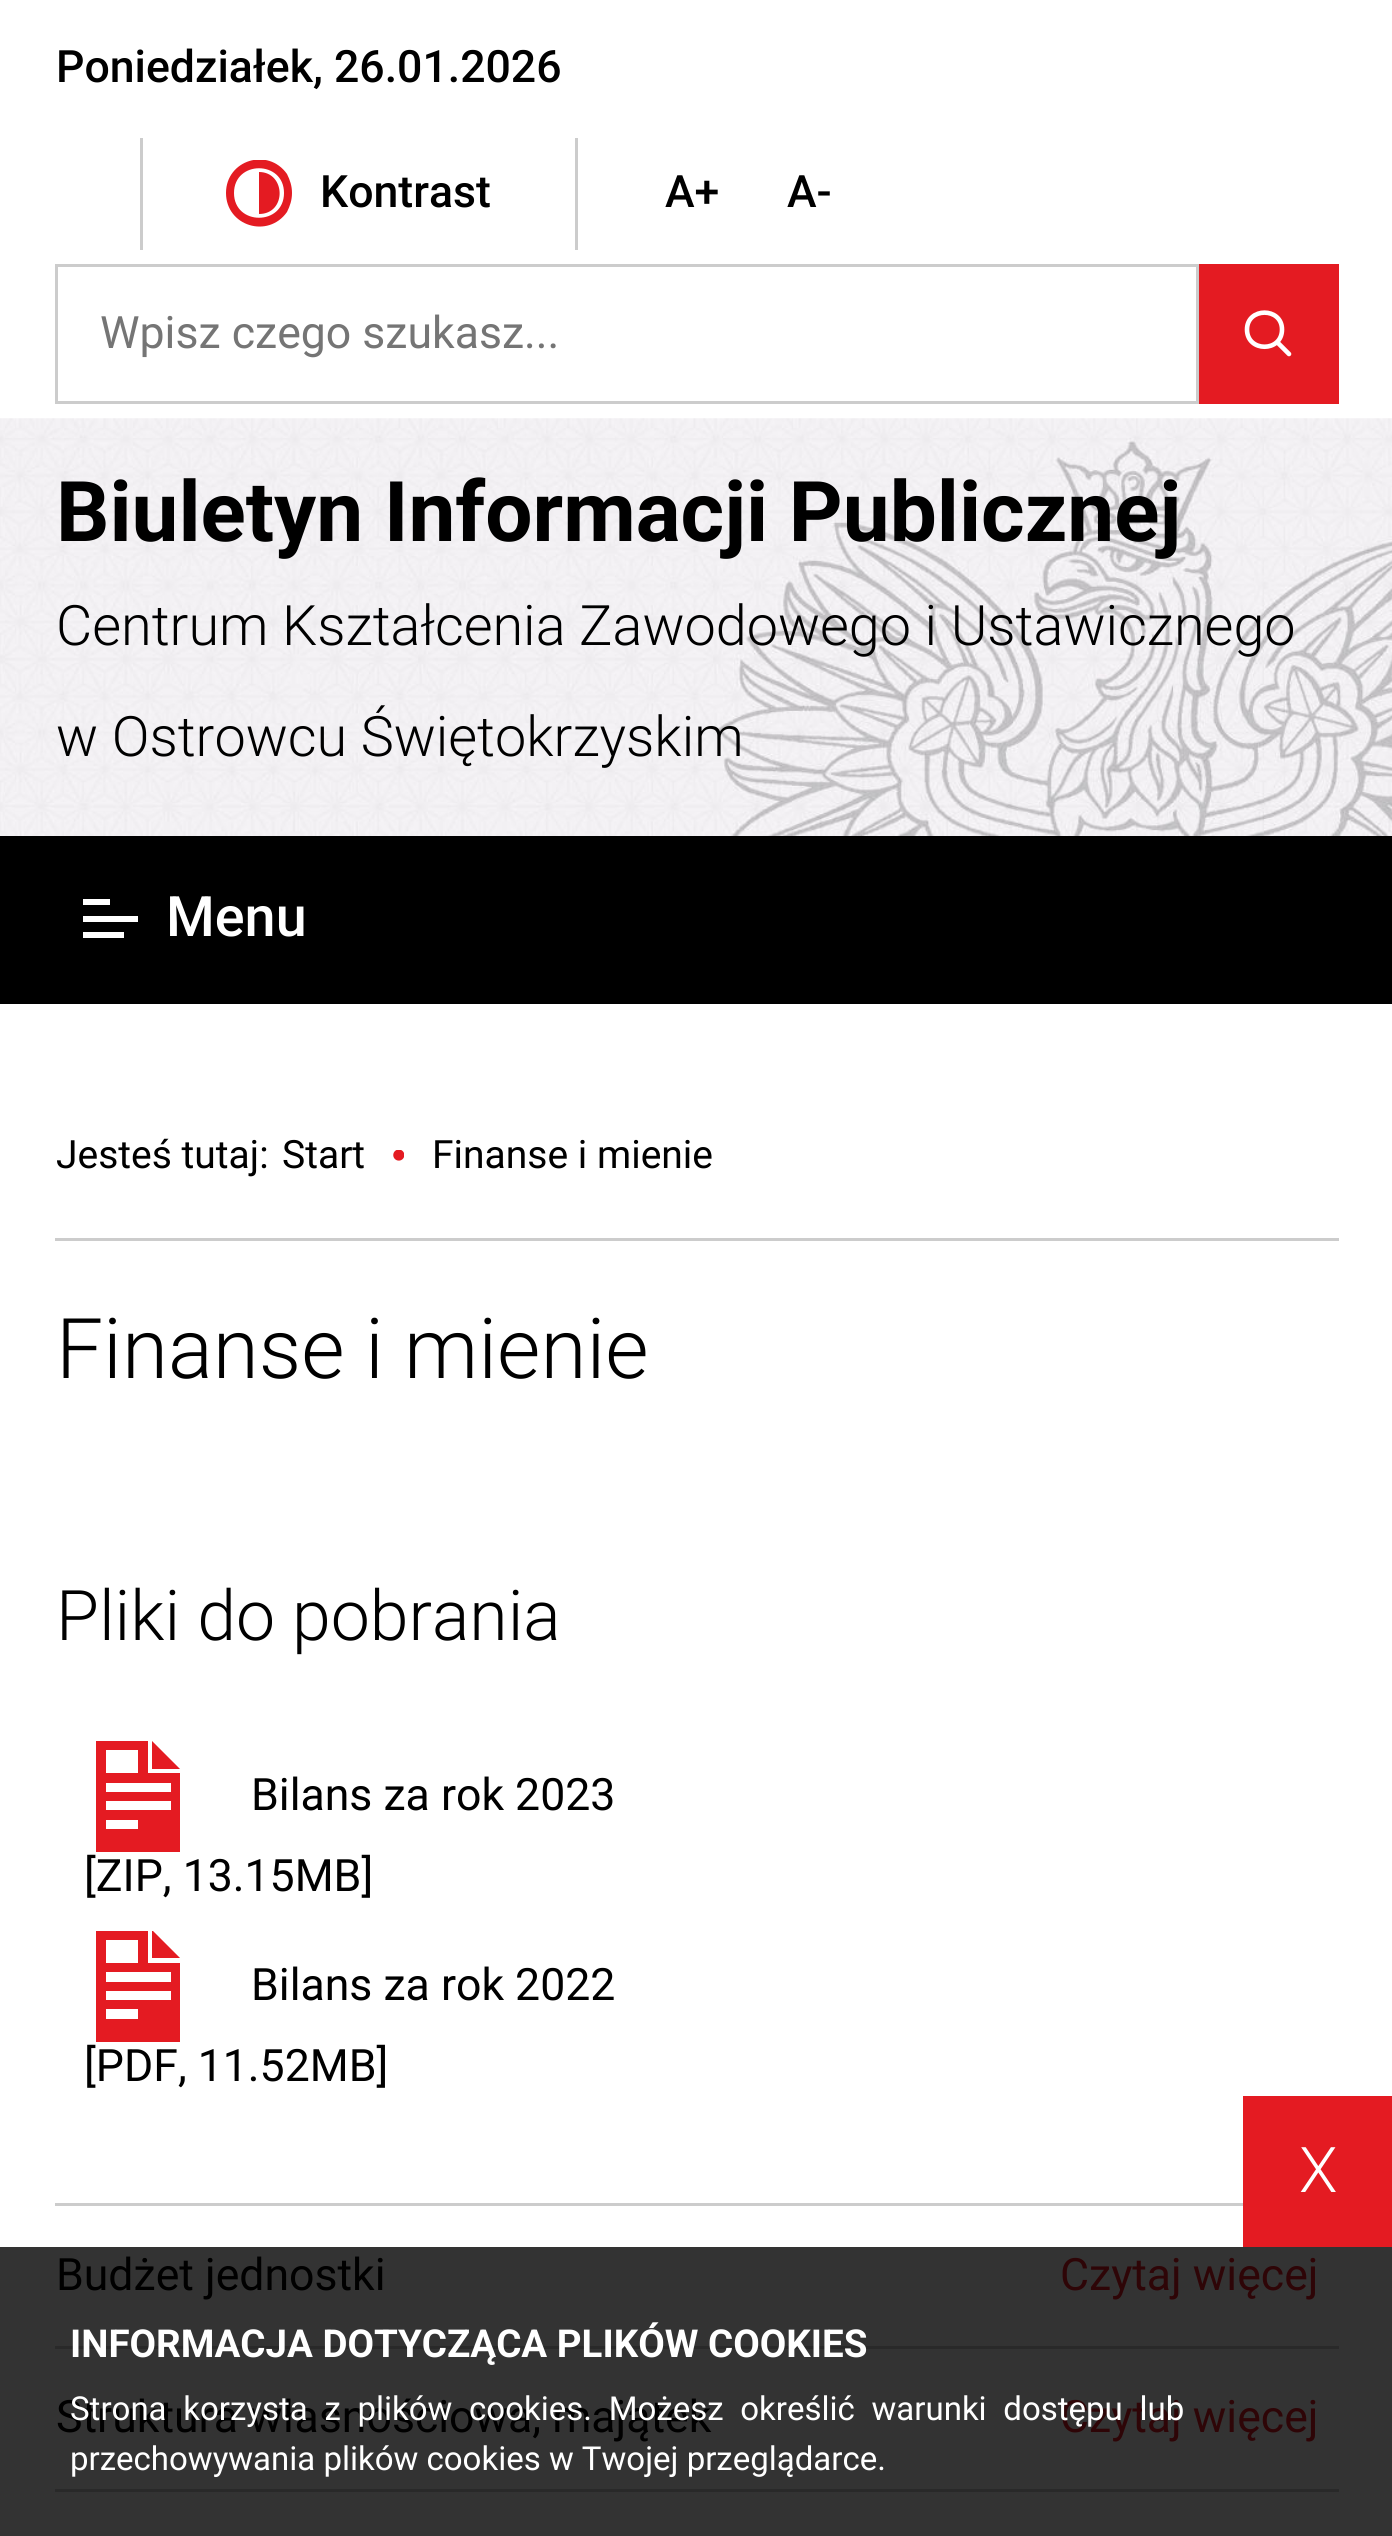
import math
import cairo


def use_color(cr, r, g, b):
  cr.set_source_rgb(r / 255, g / 255, b / 255)

def text(cr, x, y, s, family, size, color, bold=False, italic=False):
  cr.select_font_face(family, cairo.FONT_SLANT_ITALIC if italic else cairo.FONT_SLANT_NORMAL, cairo.FONT_WEIGHT_BOLD if bold else cairo.FONT_WEIGHT_NORMAL)
  cr.set_font_size(size)
  use_color(cr, *color)
  cr.move_to(x, y)
  cr.show_text(s)

def spaced_text(cr, x, y, s, letter, word):
  cr.move_to(x, y)
  for ch in s:
    cr.show_text(ch)
    cr.rel_move_to(letter + word * (ch == ' '), 0)

def box(cr, x, y, w, h, *color):
  use_color(cr, *color)
  cr.rectangle(x, y, w, h)
  cr.fill()

def picture(cr, path, x, y, w, h):
  cr.save()
  cr.set_source_surface(cairo.ImageSurface.create_from_png(path), x, y)
  cr.rectangle(x, y, w, h)
  cr.fill()
  cr.restore()

def draw(cr):
  use_color(cr, 255, 255, 255)
  cr.paint()
  box(cr, 0, 2247, 1392, 289, 51, 51, 51)
  box(cr, 140, 138, 3, 112, 204, 204, 204)
  cr.save()
  cr.rectangle(226, 160, 66, 68)
  cr.clip()
  use_color(cr, 228, 27, 34)
  cr.new_path()
  cr.move_to(226, 193)
  cr.curve_to(226, 226, 268, 239, 287, 212)
  cr.curve_to(290, 206, 292, 200, 292, 193)
  cr.curve_to(292, 186, 290, 180, 287, 174)
  cr.curve_to(268, 147, 226, 160, 226, 193)
  cr.close_path()
  cr.move_to(234, 193)
  cr.curve_to(234, 160, 284, 160, 284, 193)
  cr.curve_to(284, 226, 234, 226, 234, 193)
  cr.close_path()
  cr.move_to(259, 214)
  cr.curve_to(287, 214, 286, 172, 259, 172)
  cr.close_path()
  cr.fill()
  cr.restore()
  box(cr, 575, 138, 3, 112, 204, 204, 204)
  cr.rectangle(56.5, 265.5, 1141, 137)
  cr.set_line_width(3)
  cr.stroke()
  box(cr, 1199, 264, 140, 140, 228, 27, 34)
  cr.new_path()
  cr.move_to(1277, 342)
  cr.line_to(1289, 354)
  cr.move_to(1282, 329.5)
  cr.curve_to(1282, 352.5, 1247, 352.5, 1247, 329.5)
  cr.curve_to(1247, 307, 1282, 307, 1282, 329.5)
  cr.close_path()
  use_color(cr, 255, 255, 255)
  cr.set_line_width(4.6)
  cr.set_line_cap(cairo.LINE_CAP_ROUND)
  cr.set_line_join(cairo.LINE_JOIN_ROUND)
  cr.stroke()
  picture(cr, "img_01.png", 0, 418, 1392, 418)
  box(cr, 0, 836, 1392, 168, 0, 0, 0)
  box(cr, 83, 899, 27, 6, 255, 255, 255)
  box(cr, 83, 916, 55, 6, 255, 255, 255)
  box(cr, 83, 932, 41, 6, 255, 255, 255)
  box(cr, 55, 1238, 1284, 3, 204, 204, 204)
  picture(cr, "img_02.png", 393, 1150, 11, 11)
  use_color(cr, 228, 27, 34)
  cr.new_path()
  cr.move_to(152, 1741)
  cr.line_to(152, 1769)
  cr.line_to(180, 1769)
  cr.close_path()
  cr.move_to(148, 1741)
  cr.line_to(96, 1741)
  cr.line_to(96, 1852)
  cr.line_to(180, 1852)
  cr.line_to(180, 1773)
  cr.line_to(148, 1773)
  cr.close_path()
  cr.move_to(106, 1750)
  cr.line_to(138, 1750)
  cr.line_to(138, 1773)
  cr.line_to(106, 1773)
  cr.close_path()
  cr.move_to(138, 1829)
  cr.line_to(106, 1829)
  cr.line_to(106, 1820)
  cr.line_to(138, 1820)
  cr.close_path()
  cr.move_to(171, 1810)
  cr.line_to(106, 1810)
  cr.line_to(106, 1801)
  cr.line_to(171, 1801)
  cr.close_path()
  cr.move_to(171, 1783)
  cr.line_to(171, 1792)
  cr.line_to(106, 1792)
  cr.line_to(106, 1783)
  cr.close_path()
  cr.fill()
  cr.save()
  cr.rectangle(83, 1931, 112, 112)
  cr.clip()
  cr.new_path()
  cr.move_to(152, 1930)
  cr.line_to(152, 1958)
  cr.line_to(180, 1958)
  cr.close_path()
  cr.move_to(148, 1930)
  cr.line_to(96, 1930)
  cr.line_to(96, 2042)
  cr.line_to(180, 2042)
  cr.line_to(180, 1963)
  cr.line_to(148, 1963)
  cr.close_path()
  cr.move_to(106, 1940)
  cr.line_to(138, 1940)
  cr.line_to(138, 1963)
  cr.line_to(106, 1963)
  cr.close_path()
  cr.move_to(138, 2019)
  cr.line_to(106, 2019)
  cr.line_to(106, 2009)
  cr.line_to(138, 2009)
  cr.close_path()
  cr.move_to(171, 2000)
  cr.line_to(106, 2000)
  cr.line_to(106, 1991)
  cr.line_to(171, 1991)
  cr.close_path()
  cr.move_to(171, 1972)
  cr.line_to(171, 1982)
  cr.line_to(106, 1982)
  cr.line_to(106, 1972)
  cr.close_path()
  cr.fill()
  cr.restore()
  box(cr, 55, 2203, 1188, 3, 204, 204, 204)
  box(cr, 55, 2346, 1284, 3, 41, 41, 41)
  box(cr, 55, 2489, 1284, 3, 41, 41, 41)
  box(cr, 1243, 2096, 149, 151, 228, 27, 34)
  text(cr, 56, 82, "Poniedziałek, 26.01.2026", "Roboto Medium", 44.6, (0, 0, 0))
  text(cr, 320, 207, "Kontrast", "Roboto Medium", 44.6, (0, 0, 0))
  text(cr, 665, 207, "A+", "Roboto Medium", 44.6, (0, 0, 0))
  text(cr, 787, 207, "A-", "Roboto Medium", 44.6, (0, 0, 0))
  text(cr, 100, 348, "Wpisz czego szukasz...", "Roboto", 44.6, (117, 117, 117))
  text(cr, 56, 541, "Biuletyn Informacji Publicznej", "Roboto", 83.7, (0, 0, 0), bold=True)
  text(cr, 56, 645, "Centrum Kształcenia Zawodowego i Ustawicznego", "Roboto Light", 55.75, (0, 0, 0))
  text(cr, 56, 756, "w Ostrowcu Świętokrzyskim", "Roboto Light", 55.75, (0, 0, 0))
  text(cr, 166, 936, "Menu", "Roboto Medium", 55.75, (255, 255, 255))
  text(cr, 56, 1168, "Jesteś tutaj:", "Roboto", 39, (0, 0, 0))
  text(cr, 282, 1168, "Start", "Roboto", 39, (0, 0, 0))
  text(cr, 432, 1168, "Finanse i mienie", "Roboto", 39, (0, 0, 0))
  text(cr, 56, 1378, "Finanse i mienie", "Roboto Light", 83.7, (0, 0, 0))
  text(cr, 56, 1640, "Pliki do pobrania", "Roboto Light", 69.75, (0, 0, 0))
  text(cr, 251, 1810, "Bilans za rok 2023", "Roboto", 44.6, (0, 0, 0))
  text(cr, 84, 1891, "[ZIP, 13.15MB]", "Roboto", 44.6, (0, 0, 0))
  text(cr, 251, 2000, "Bilans za rok 2022", "Roboto", 44.6, (0, 0, 0))
  text(cr, 84, 2081, "[PDF, 11.52MB]", "Roboto", 44.6, (0, 0, 0))
  text(cr, 56, 2290, "Budżet jednostki", "Roboto", 44.6, (0, 0, 0))
  text(cr, 1060, 2290, "Czytaj więcej", "Roboto", 44.6, (46, 5, 7))
  text(cr, 56, 2432, "Struktura własnościowa, majątek", "Roboto", 44.6, (0, 0, 0))
  text(cr, 1060, 2432, "Czytaj więcej", "Roboto", 44.6, (46, 5, 7))
  text(cr, 1299, 2192, "X", "Roboto Light", 63, (255, 255, 255))
  text(cr, 70, 2357, "INFORMACJA DOTYCZĄCA PLIKÓW COOKIES", "Roboto", 38.5, (255, 255, 255), bold=True)
  cr.select_font_face("Roboto")
  cr.set_font_size(33)
  spaced_text(cr, 70, 2420, "Strona korzysta z plików cookies. Możesz określić warunki dostępu lub", 0, 8.5)
  text(cr, 70, 2470, "przechowywania plików cookies w Twojej przeglądarce.", "Roboto", 33, (255, 255, 255))


surface = cairo.ImageSurface(cairo.FORMAT_RGB24, 1392, 2536)
cr = cairo.Context(surface)
options = cairo.FontOptions()
options.set_hint_metrics(cairo.HINT_METRICS_OFF)
options.set_hint_style(cairo.HINT_STYLE_NONE)
cr.set_font_options(options)
cr.set_miter_limit(4)
draw(cr)
surface.write_to_png("out.png")
